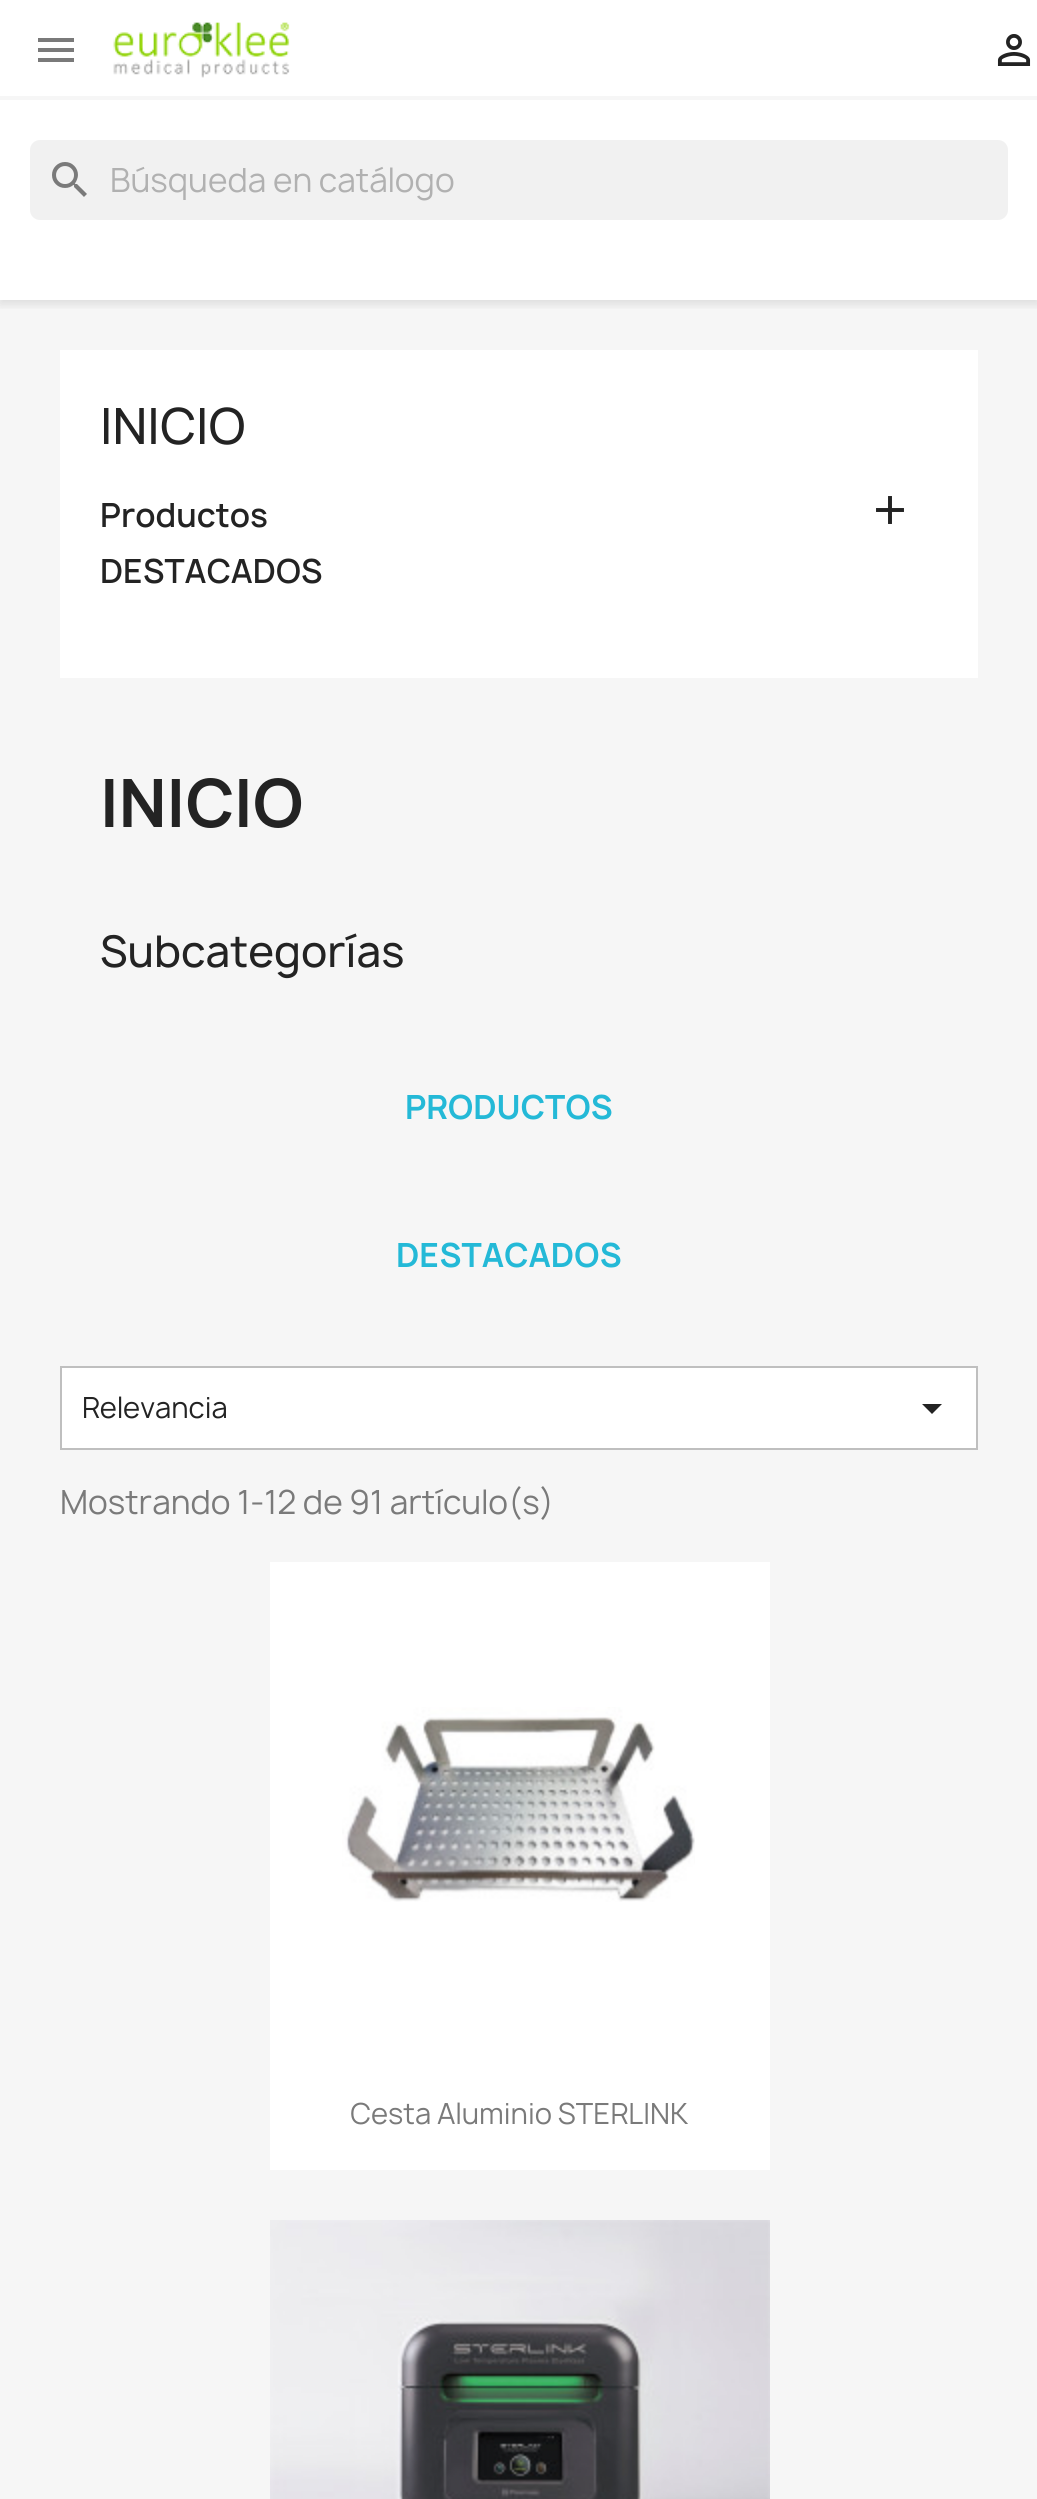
import math
import cairo


def use_color(cr, r, g, b):
  cr.set_source_rgb(r / 255, g / 255, b / 255)

def text(cr, x, y, s, family, size, color, bold=False, italic=False):
  cr.select_font_face(family, cairo.FONT_SLANT_ITALIC if italic else cairo.FONT_SLANT_NORMAL, cairo.FONT_WEIGHT_BOLD if bold else cairo.FONT_WEIGHT_NORMAL)
  cr.set_font_size(size)
  use_color(cr, *color)
  cr.move_to(x, y)
  cr.show_text(s)

def box(cr, x, y, w, h, *color):
  use_color(cr, *color)
  cr.rectangle(x, y, w, h)
  cr.fill()

def round_rect(cr, x, y, w, h, r):
  cr.new_sub_path()
  for i, (u, v) in enumerate([(x + w - r, y + h - r), (x + r, y + h - r), (x + r, y + r), (x + w - r, y + r)]):
    cr.arc(u, v, r, i * math.pi / 2, (i + 1) * math.pi / 2)
  cr.close_path()

def shadow(cr, x, y, w, h, r, blur, alpha):
  cr.push_group_with_content(cairo.CONTENT_ALPHA)
  cr.set_operator(cairo.OPERATOR_SOURCE)
  for i in range(15, -16, -2):
    e = blur * i / 6
    if min(w, h) + 2 * e > 0:
      cr.set_source_rgba(0, 0, 0, alpha * math.erfc((i - 1) / 8.5) / 2)
      round_rect(cr, x - e, y - e, w + 2 * e, h + 2 * e, max(0, min(r + e + blur * .6, min(w, h) / 2 + e)))
      cr.fill()
  cr.mask(cr.pop_group())

def picture(cr, path, x, y, w, h):
  cr.save()
  cr.set_source_surface(cairo.ImageSurface.create_from_png(path), x, y)
  cr.rectangle(x, y, w, h)
  cr.fill()
  cr.restore()

def draw(cr):
  use_color(cr, 255, 255, 255)
  cr.paint()
  box(cr, 0, 300, 1037, 2199, 246, 246, 246)
  cr.save()
  cr.rectangle(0, 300, 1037, 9)
  cr.clip()
  use_color(cr, 0, 0, 0)
  shadow(cr, 0, 4, 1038, 300, 0, 5, 0.11)
  cr.restore()
  box(cr, 0, 96, 1037, 4, 246, 246, 246)
  use_color(cr, 122, 122, 122)
  cr.new_path()
  cr.move_to(38, 38)
  cr.line_to(74, 38)
  cr.line_to(74, 42)
  cr.line_to(38, 42)
  cr.close_path()
  cr.move_to(38, 52)
  cr.line_to(38, 48)
  cr.line_to(74, 48)
  cr.line_to(74, 52)
  cr.close_path()
  cr.move_to(38, 62)
  cr.line_to(38, 58)
  cr.line_to(74, 58)
  cr.line_to(74, 62)
  cr.close_path()
  cr.fill()
  picture(cr, "img_01.png", 113, 22, 177, 56)
  picture(cr, "img_02.png", 997, 34, 34, 32)
  use_color(cr, 241, 241, 241)
  round_rect(cr, 30, 140, 978, 80, 10)
  cr.fill()
  picture(cr, "img_03.png", 52, 162, 35, 35)
  box(cr, 60, 350, 918, 328, 255, 255, 255)
  picture(cr, "img_04.png", 876, 496, 28, 28)
  cr.rectangle(61, 1367, 916, 82)
  cr.fill_preserve()
  use_color(cr, 191, 191, 191)
  cr.stroke()
  use_color(cr, 35, 35, 35)
  cr.new_path()
  cr.move_to(922, 1404)
  cr.line_to(942, 1404)
  cr.line_to(932, 1414)
  cr.close_path()
  cr.fill()
  box(cr, 270, 1562, 500, 608, 255, 255, 255)
  picture(cr, "img_05.png", 342, 1707, 353, 195)
  picture(cr, "img_06.png", 270, 2220, 500, 279)
  text(cr, 110, 192, "Búsqueda en catálogo", "Manrope", 32, (177, 177, 177))
  text(cr, 100, 444, "INICIO", "Manrope Medium", 48, (35, 35, 35))
  text(cr, 100, 527, "Productos", "Manrope SemiBold", 32, (35, 35, 35))
  text(cr, 100, 583, "DESTACADOS", "Manrope SemiBold", 32, (35, 35, 35))
  text(cr, 100, 827, "INICIO", "Manrope", 64, (35, 35, 35), bold=True)
  text(cr, 100, 967, "Subcategorías", "Manrope Medium", 42, (35, 35, 35))
  text(cr, 405, 1119, "PRODUCTOS", "Manrope", 32, (36, 185, 215), bold=True)
  text(cr, 396, 1267, "DESTACADOS", "Manrope", 32, (36, 185, 215), bold=True)
  text(cr, 82, 1418, "Relevancia", "Manrope", 28, (35, 35, 35))
  text(cr, 60, 1514, "Mostrando 1-12 de 91 artículo(s)", "Manrope", 32, (122, 122, 122))
  text(cr, 350, 2124, "Cesta Aluminio STERLINK", "Manrope", 28, (122, 122, 122))


surface = cairo.ImageSurface(cairo.FORMAT_RGB24, 1037, 2499)
cr = cairo.Context(surface)
options = cairo.FontOptions()
options.set_hint_metrics(cairo.HINT_METRICS_OFF)
options.set_hint_style(cairo.HINT_STYLE_NONE)
cr.set_font_options(options)
cr.set_miter_limit(4)
draw(cr)
surface.write_to_png("out.png")
